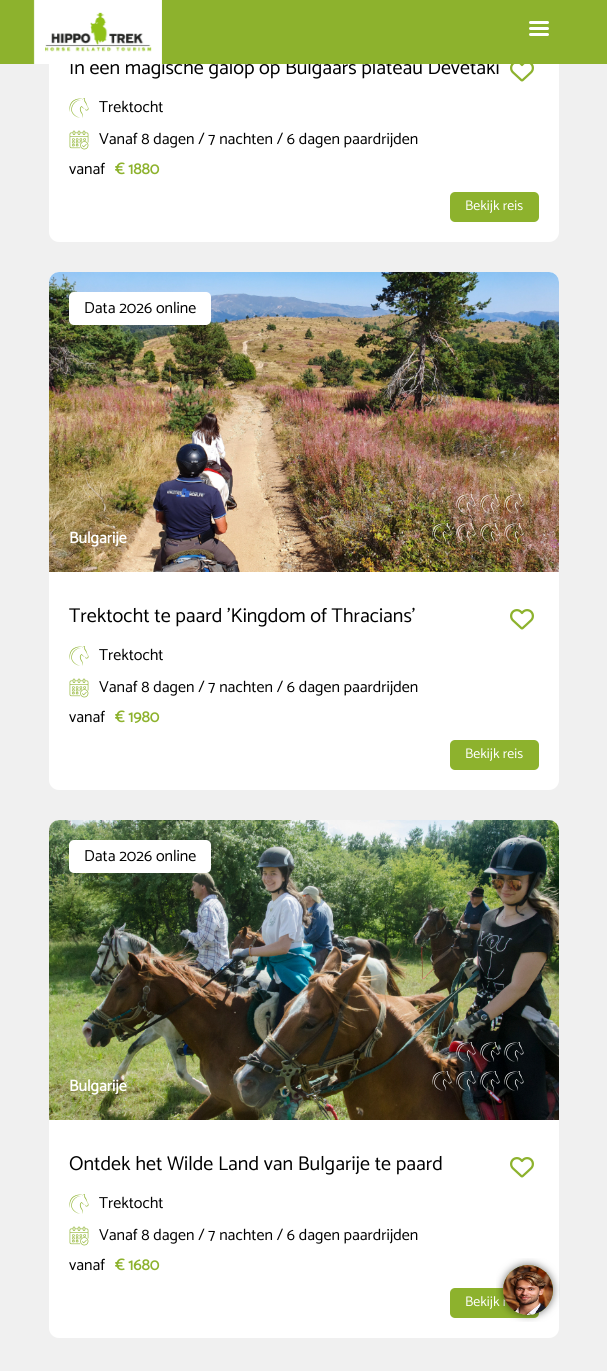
import math
import cairo


def use_color(cr, r, g, b):
  cr.set_source_rgb(r / 255, g / 255, b / 255)

def text(cr, x, y, s, family, size, color, bold=False, italic=False):
  cr.select_font_face(family, cairo.FONT_SLANT_ITALIC if italic else cairo.FONT_SLANT_NORMAL, cairo.FONT_WEIGHT_BOLD if bold else cairo.FONT_WEIGHT_NORMAL)
  cr.set_font_size(size)
  use_color(cr, *color)
  cr.move_to(x, y)
  cr.show_text(s)

def box(cr, x, y, w, h, *color):
  use_color(cr, *color)
  cr.rectangle(x, y, w, h)
  cr.fill()

def round_rect(cr, x, y, w, h, r):
  cr.new_sub_path()
  for i, (u, v) in enumerate([(x + w - r, y + h - r), (x + r, y + h - r), (x + r, y + r), (x + w - r, y + r)]):
    cr.arc(u, v, r, i * math.pi / 2, (i + 1) * math.pi / 2)
  cr.close_path()

def picture(cr, path, x, y, w, h):
  cr.save()
  cr.set_source_surface(cairo.ImageSurface.create_from_png(path), x, y)
  cr.rectangle(x, y, w, h)
  cr.fill()
  cr.restore()

def draw(cr):
  use_color(cr, 240, 240, 240)
  cr.paint()
  use_color(cr, 255, 255, 255)
  round_rect(cr, 49, -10, 510, 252, 10)
  cr.fill()
  picture(cr, "img_02.png", 510, 64, 24, 18)
  picture(cr, "img_03.png", 69, 98, 20, 20)
  picture(cr, "img_04.png", 69, 130, 20, 20)
  use_color(cr, 141, 178, 45)
  round_rect(cr, 450, 192, 89, 30, 5)
  cr.fill()
  use_color(cr, 255, 255, 255)
  round_rect(cr, 49, 272, 510, 518, 10)
  cr.fill()
  picture(cr, "img_05.png", 49, 272, 510, 300)
  round_rect(cr, 69, 292, 142, 33, 5)
  cr.fill()
  picture(cr, "img_06.png", 456, 494, 20, 20)
  picture(cr, "img_07.png", 480, 494, 20, 20)
  picture(cr, "img_08.png", 504, 494, 20, 20)
  picture(cr, "img_09.png", 432, 523, 20, 20)
  picture(cr, "img_10.png", 456, 523, 20, 20)
  picture(cr, "img_11.png", 480, 523, 20, 20)
  picture(cr, "img_12.png", 504, 523, 20, 20)
  picture(cr, "img_13.png", 510, 609, 24, 21)
  picture(cr, "img_03.png", 69, 646, 20, 20)
  picture(cr, "img_04.png", 69, 678, 20, 20)
  use_color(cr, 141, 178, 45)
  round_rect(cr, 450, 740, 89, 30, 5)
  cr.fill()
  use_color(cr, 255, 255, 255)
  round_rect(cr, 49, 820, 510, 518, 10)
  cr.fill()
  picture(cr, "img_14.png", 49, 820, 510, 300)
  round_rect(cr, 69, 840, 142, 33, 5)
  cr.fill()
  picture(cr, "img_15.png", 456, 1042, 20, 20)
  picture(cr, "img_16.png", 480, 1042, 20, 20)
  picture(cr, "img_17.png", 504, 1042, 20, 20)
  picture(cr, "img_18.png", 432, 1071, 20, 20)
  picture(cr, "img_19.png", 456, 1071, 20, 20)
  picture(cr, "img_20.png", 480, 1071, 20, 20)
  picture(cr, "img_21.png", 504, 1071, 20, 20)
  picture(cr, "img_13.png", 510, 1157, 24, 21)
  picture(cr, "img_03.png", 69, 1194, 20, 20)
  picture(cr, "img_04.png", 69, 1226, 20, 20)
  use_color(cr, 141, 178, 45)
  round_rect(cr, 450, 1288, 89, 30, 5)
  cr.fill()
  text(cr, 69, 74, "In een magische galop op Bulgaars plateau Devetaki", "Catamaran Thin", 20, (0, 0, 0))
  box(cr, 0, 0, 607, 64, 141, 178, 45)
  use_color(cr, 255, 255, 255)
  round_rect(cr, 529, 33, 20, 3, 1.5)
  cr.fill()
  round_rect(cr, 529, 27, 20, 3, 1.5)
  cr.fill()
  round_rect(cr, 529, 21, 20, 3, 1.5)
  cr.fill()
  picture(cr, "img_01.png", 33, 0, 129, 64)
  text(cr, 99, 112, "Trektocht", "Catamaran Thin", 16, (0, 0, 0))
  text(cr, 99, 144, "Vanaf 8 dagen / 7 nachten / 6 dagen paardrijden", "Catamaran Thin", 16, (0, 0, 0))
  text(cr, 69, 174, "vanaf", "Catamaran Thin", 16, (0, 0, 0))
  text(cr, 115, 174, "€ 1880", "Catamaran", 16, (141, 178, 45), bold=True)
  text(cr, 465, 210, "Bekijk reis", "Catamaran Thin", 14, (255, 255, 255))
  text(cr, 84, 313, "Data 2026 online", "Catamaran Thin", 16, (0, 0, 0))
  text(cr, 69, 543, "Bulgarije", "Catamaran", 16, (255, 255, 255), bold=True)
  text(cr, 69, 622, "Trektocht te paard 'Kingdom of Thracians'", "Catamaran Thin", 20, (0, 0, 0))
  text(cr, 99, 660, "Trektocht", "Catamaran Thin", 16, (0, 0, 0))
  text(cr, 99, 692, "Vanaf 8 dagen / 7 nachten / 6 dagen paardrijden", "Catamaran Thin", 16, (0, 0, 0))
  text(cr, 69, 722, "vanaf", "Catamaran Thin", 16, (0, 0, 0))
  text(cr, 115, 722, "€ 1980", "Catamaran", 16, (141, 178, 45), bold=True)
  text(cr, 465, 758, "Bekijk reis", "Catamaran Thin", 14, (255, 255, 255))
  text(cr, 84, 861, "Data 2026 online", "Catamaran Thin", 16, (0, 0, 0))
  text(cr, 69, 1091, "Bulgarije", "Catamaran", 16, (255, 255, 255), bold=True)
  text(cr, 69, 1170, "Ontdek het Wilde Land van Bulgarije te paard", "Catamaran Thin", 20, (0, 0, 0))
  text(cr, 99, 1208, "Trektocht", "Catamaran Thin", 16, (0, 0, 0))
  text(cr, 99, 1240, "Vanaf 8 dagen / 7 nachten / 6 dagen paardrijden", "Catamaran Thin", 16, (0, 0, 0))
  text(cr, 69, 1270, "vanaf", "Catamaran Thin", 16, (0, 0, 0))
  text(cr, 115, 1270, "€ 1680", "Catamaran", 16, (141, 178, 45), bold=True)
  text(cr, 465, 1306, "Bekijk r", "Catamaran Thin", 14, (255, 255, 255))
  picture(cr, "img_22.png", 496, 1258, 64, 64)


surface = cairo.ImageSurface(cairo.FORMAT_RGB24, 607, 1371)
cr = cairo.Context(surface)
options = cairo.FontOptions()
options.set_hint_metrics(cairo.HINT_METRICS_OFF)
options.set_hint_style(cairo.HINT_STYLE_NONE)
cr.set_font_options(options)
cr.set_miter_limit(4)
draw(cr)
surface.write_to_png("out.png")
